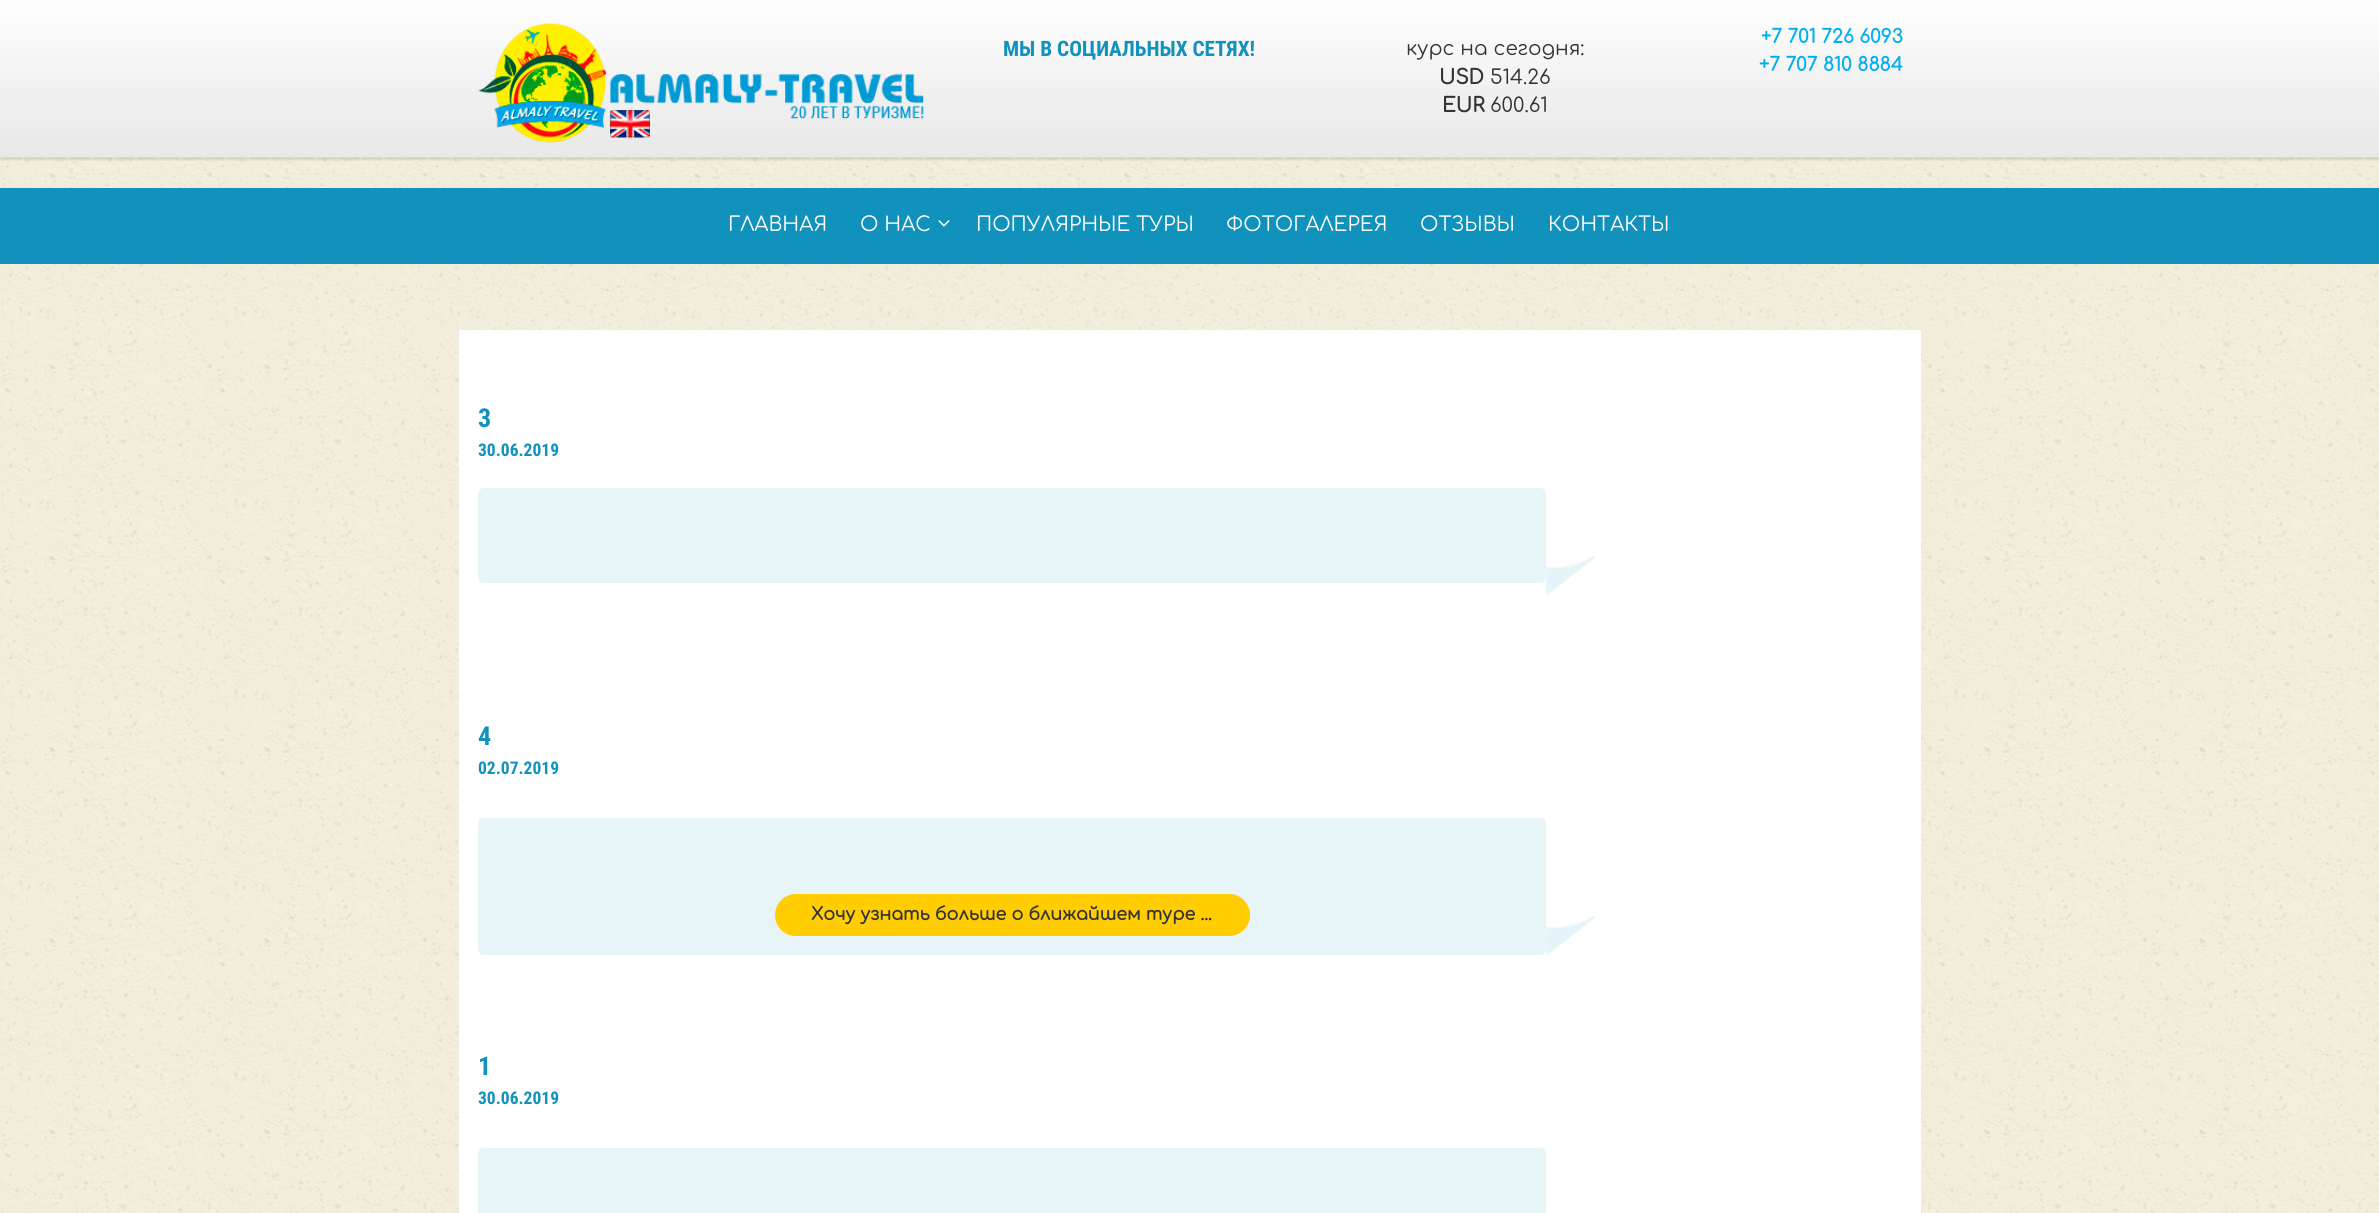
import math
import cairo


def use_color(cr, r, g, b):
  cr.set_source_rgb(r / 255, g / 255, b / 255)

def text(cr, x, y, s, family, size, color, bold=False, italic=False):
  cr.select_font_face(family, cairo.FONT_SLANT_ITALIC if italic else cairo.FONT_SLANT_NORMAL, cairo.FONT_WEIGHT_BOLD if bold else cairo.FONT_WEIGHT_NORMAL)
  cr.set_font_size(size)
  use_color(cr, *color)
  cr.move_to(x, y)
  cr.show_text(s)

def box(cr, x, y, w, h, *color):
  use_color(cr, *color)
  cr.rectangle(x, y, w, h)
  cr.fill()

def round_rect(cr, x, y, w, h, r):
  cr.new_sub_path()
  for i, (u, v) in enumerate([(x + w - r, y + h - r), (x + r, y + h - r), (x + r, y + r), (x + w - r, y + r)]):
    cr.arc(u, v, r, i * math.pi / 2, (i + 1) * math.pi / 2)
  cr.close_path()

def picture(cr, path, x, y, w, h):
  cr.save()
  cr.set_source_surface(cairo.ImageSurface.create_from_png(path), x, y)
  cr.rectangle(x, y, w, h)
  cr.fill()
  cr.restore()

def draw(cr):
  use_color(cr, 255, 255, 255)
  cr.paint()
  picture(cr, "img_01.png", 0, 157, 2379, 1056)
  picture(cr, "img_02.png", 0, 0, 2379, 161)
  picture(cr, "img_03.png", 478, 23, 446, 120)
  picture(cr, "img_04.png", 610, 110, 40, 28)
  box(cr, 459, 330, 1462, 883, 255, 255, 255)
  use_color(cr, 231, 244, 248)
  round_rect(cr, 478, 488, 1068, 95, 6)
  cr.fill()
  picture(cr, "img_05.png", 1546, 556, 49, 40)
  round_rect(cr, 478, 818, 1068, 137, 6)
  cr.fill()
  use_color(cr, 255, 205, 0)
  round_rect(cr, 775, 894, 475, 42, 21)
  cr.fill()
  picture(cr, "img_06.png", 1546, 916, 49, 40)
  use_color(cr, 231, 244, 248)
  round_rect(cr, 478, 1148, 1068, 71, 6)
  cr.fill()
  box(cr, 0, 188, 2379, 76, 17, 146, 188)
  picture(cr, "img_07.png", 938, 220, 12, 7)
  text(cr, 1003, 56, "МЫ В СОЦИАЛЬНЫХ СЕТЯХ!", "Roboto Condensed", 21.25, (17, 146, 188), bold=True)
  text(cr, 1406, 55, "курс на сегодня:", "Comfortaa", 20, (51, 51, 51))
  text(cr, 1439, 84, "USD", "Comfortaa", 20, (51, 51, 51), bold=True)
  text(cr, 1490, 84, "514.26", "Comfortaa", 20, (51, 51, 51))
  text(cr, 1442, 112, "EUR", "Comfortaa", 20, (51, 51, 51), bold=True)
  text(cr, 1490, 112, "600.61", "Comfortaa", 20, (51, 51, 51))
  text(cr, 1761, 43, "+7 701 726 6093", "Comfortaa", 18.75, (0, 176, 240), bold=True)
  text(cr, 1759, 71, "+7 707 810 8884", "Comfortaa", 18.75, (0, 176, 240), bold=True)
  text(cr, 478, 427, "3", "Roboto Condensed", 26, (17, 146, 188), bold=True)
  text(cr, 478, 456, "30.06.2019", "Roboto Condensed", 17.5, (17, 146, 188), bold=True)
  text(cr, 478, 745, "4", "Roboto Condensed", 26, (17, 146, 188), bold=True)
  text(cr, 478, 774, "02.07.2019", "Roboto Condensed", 17.5, (17, 146, 188), bold=True)
  text(cr, 811, 920, "Хочу узнать больше о ближайшем туре ...", "Comfortaa", 17.5, (51, 51, 51), bold=True)
  text(cr, 478, 1075, "1", "Roboto Condensed", 26, (17, 146, 188), bold=True)
  text(cr, 478, 1104, "30.06.2019", "Roboto Condensed", 17.5, (17, 146, 188), bold=True)
  text(cr, 728, 231, "ГЛАВНАЯ", "Comfortaa", 20, (255, 255, 255))
  text(cr, 860, 231, "О НАС", "Comfortaa", 20, (255, 255, 255))
  text(cr, 976, 231, "ПОПУЛЯРНЫЕ ТУРЫ", "Comfortaa", 20, (255, 255, 255))
  text(cr, 1226, 231, "ФОТОГАЛЕРЕЯ", "Comfortaa", 20, (255, 255, 255))
  text(cr, 1420, 231, "ОТЗЫВЫ", "Comfortaa", 20, (255, 255, 255))
  text(cr, 1548, 231, "КОНТАКТЫ", "Comfortaa", 20, (255, 255, 255))


surface = cairo.ImageSurface(cairo.FORMAT_RGB24, 2379, 1213)
cr = cairo.Context(surface)
options = cairo.FontOptions()
options.set_hint_metrics(cairo.HINT_METRICS_OFF)
options.set_hint_style(cairo.HINT_STYLE_NONE)
cr.set_font_options(options)
cr.set_miter_limit(4)
draw(cr)
surface.write_to_png("out.png")
